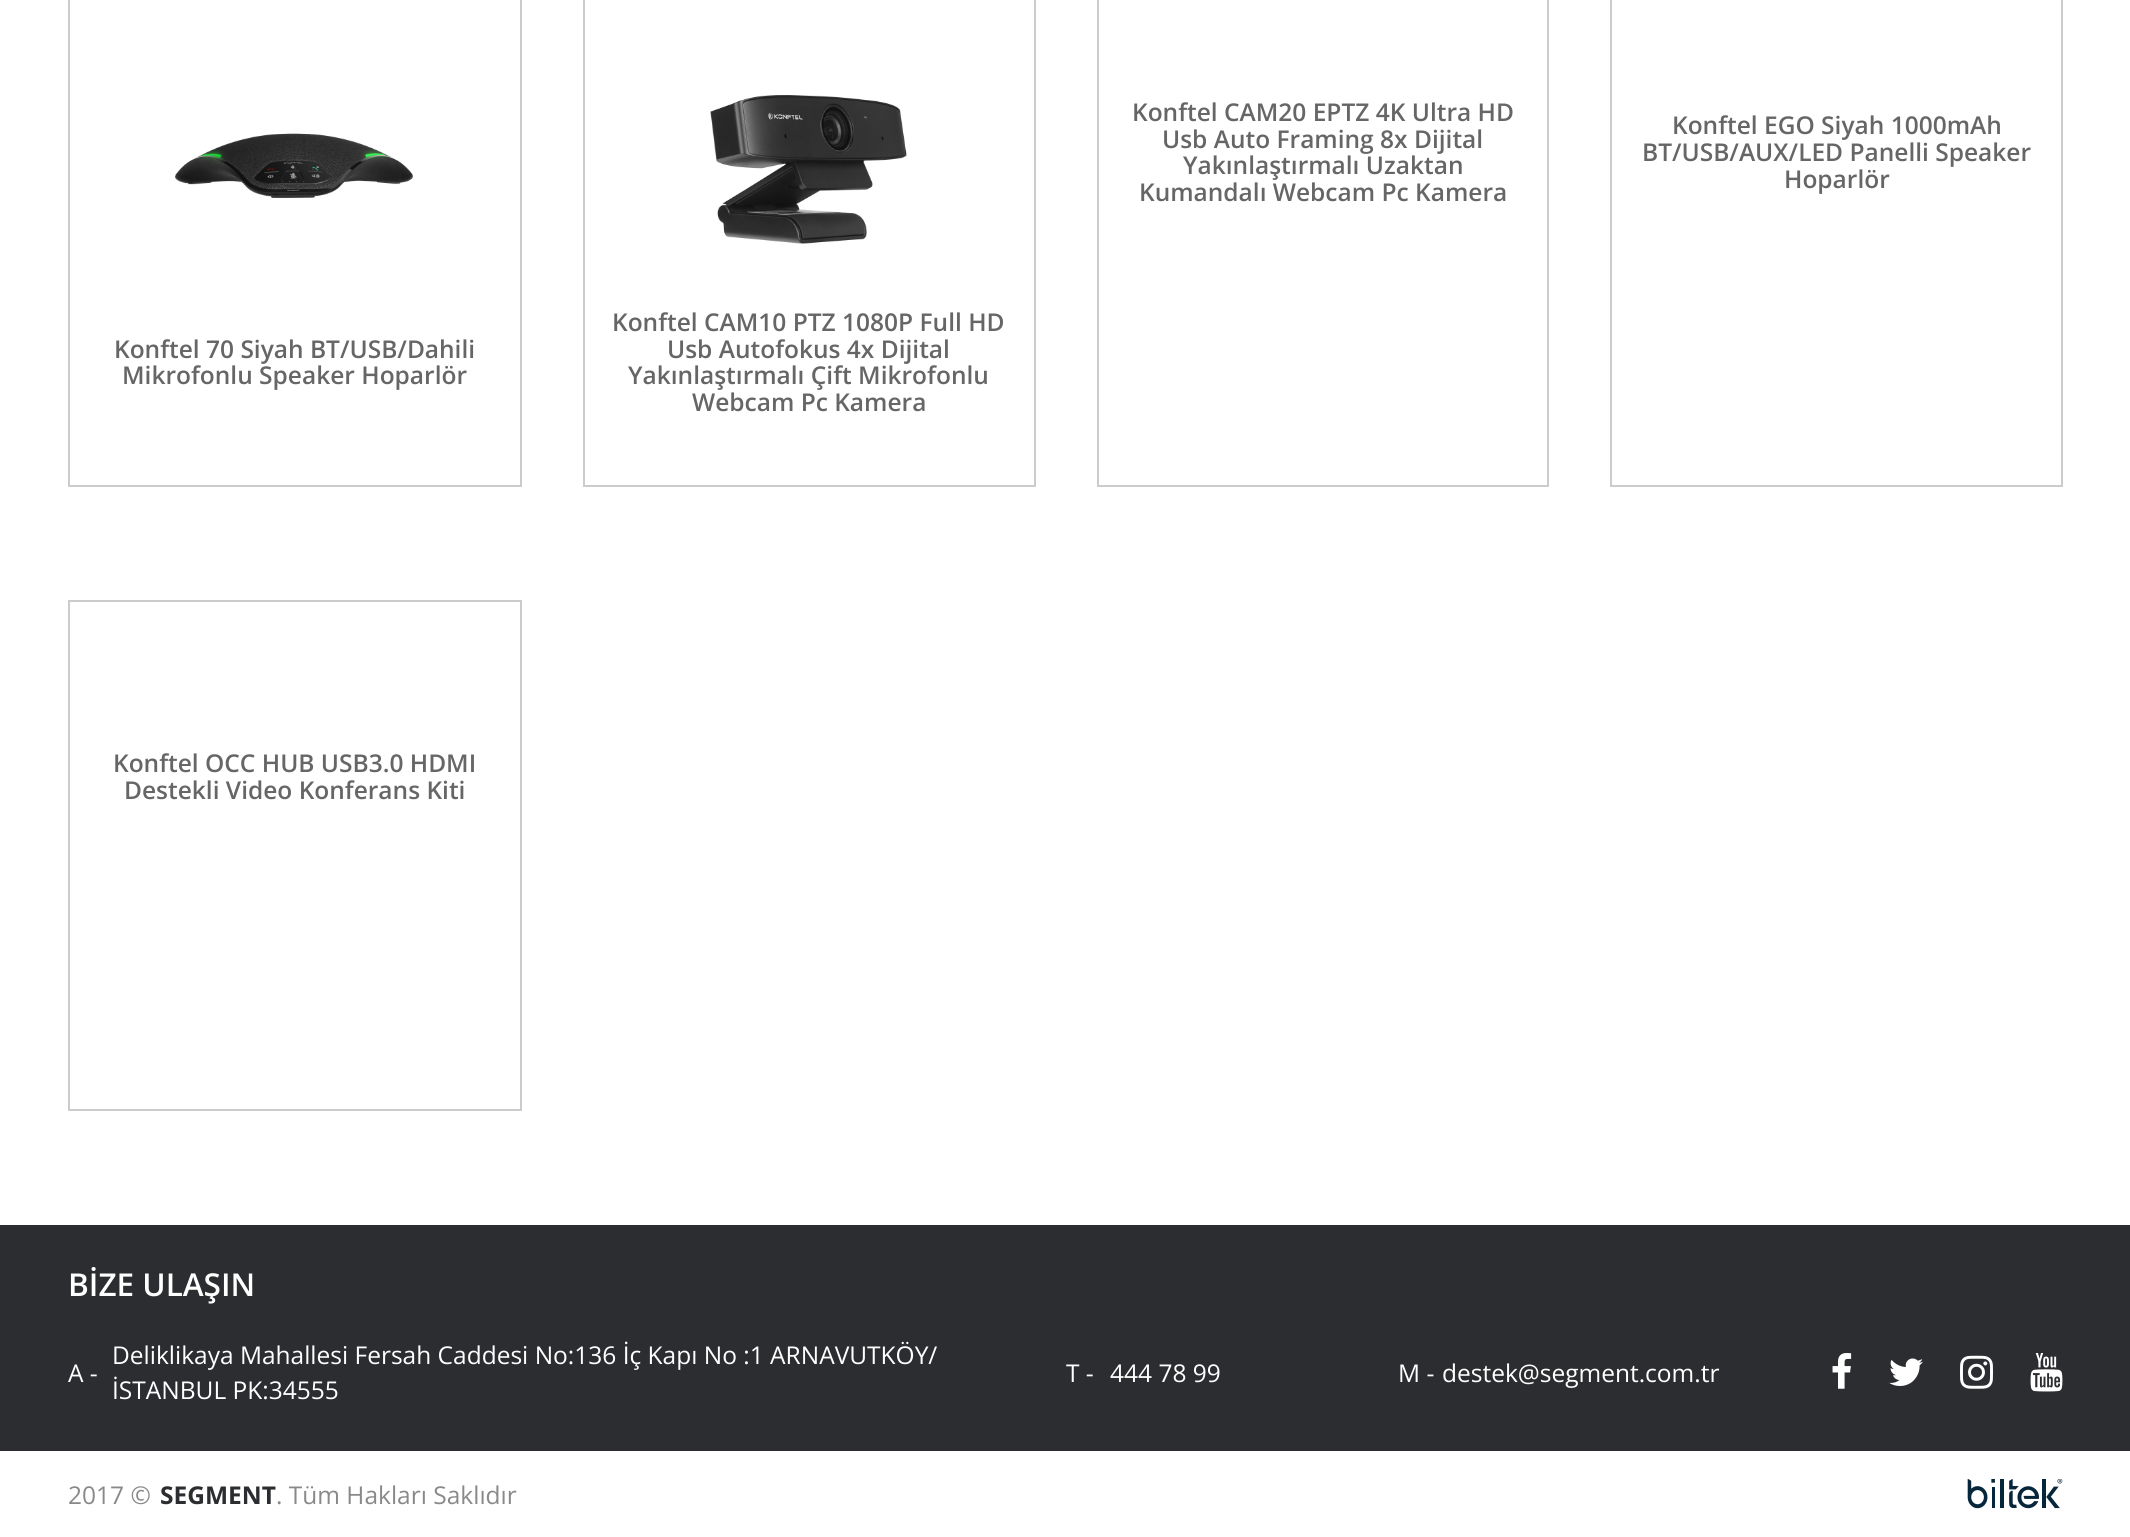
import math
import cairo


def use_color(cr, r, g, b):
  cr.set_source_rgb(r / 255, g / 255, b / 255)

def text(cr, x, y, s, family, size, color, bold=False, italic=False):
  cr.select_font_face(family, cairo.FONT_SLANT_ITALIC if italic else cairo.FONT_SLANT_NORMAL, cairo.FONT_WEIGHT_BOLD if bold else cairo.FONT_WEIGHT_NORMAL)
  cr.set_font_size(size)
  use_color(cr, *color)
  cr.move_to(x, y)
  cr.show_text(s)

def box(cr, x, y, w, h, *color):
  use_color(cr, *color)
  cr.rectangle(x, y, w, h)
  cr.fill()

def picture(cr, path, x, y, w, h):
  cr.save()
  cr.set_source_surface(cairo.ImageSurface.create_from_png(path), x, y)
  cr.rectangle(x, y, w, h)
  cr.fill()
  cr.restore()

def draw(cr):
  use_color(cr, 255, 255, 255)
  cr.paint()
  cr.rectangle(1098, -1, 450, 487)
  use_color(cr, 204, 204, 204)
  cr.stroke()
  cr.rectangle(1611, -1, 451, 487)
  cr.stroke()
  cr.rectangle(69, -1, 452, 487)
  cr.stroke()
  picture(cr, "img_01.png", 175, 133, 238, 65)
  cr.rectangle(584, -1, 451, 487)
  cr.stroke()
  picture(cr, "img_02.png", 710, 95, 197, 149)
  cr.rectangle(69, 601, 452, 509)
  cr.stroke()
  box(cr, 0, 1225, 2130, 226, 43, 45, 48)
  picture(cr, "img_03.png", 1832, 1353, 20, 36)
  picture(cr, "img_04.png", 1889, 1358, 34, 28)
  picture(cr, "img_05.png", 1960, 1355, 33, 34)
  picture(cr, "img_06.png", 2030, 1353, 33, 39)
  picture(cr, "img_07.png", 1967, 1479, 96, 30)
  text(cr, 1132, 121, "Konftel CAM20 EPTZ 4K Ultra HD", "Open Sans SemiBold", 24.5, (102, 102, 102))
  text(cr, 1162, 148, "Usb Auto Framing 8x Dijital", "Open Sans SemiBold", 24.5, (102, 102, 102))
  text(cr, 1183, 174, "Yakınlaştırmalı Uzaktan", "Open Sans SemiBold", 24.5, (102, 102, 102))
  text(cr, 1139, 201, "Kumandalı Webcam Pc Kamera", "Open Sans SemiBold", 24.5, (102, 102, 102))
  text(cr, 1672, 134, "Konftel EGO Siyah 1000mAh", "Open Sans SemiBold", 24.5, (102, 102, 102))
  text(cr, 1642, 161, "BT/USB/AUX/LED Panelli Speaker", "Open Sans SemiBold", 24.5, (102, 102, 102))
  text(cr, 1784, 188, "Hoparlör", "Open Sans SemiBold", 24.5, (102, 102, 102))
  text(cr, 114, 358, "Konftel 70 Siyah BT/USB/Dahili", "Open Sans SemiBold", 24.5, (102, 102, 102))
  text(cr, 122, 384, "Mikrofonlu Speaker Hoparlör", "Open Sans SemiBold", 24.5, (102, 102, 102))
  text(cr, 612, 331, "Konftel CAM10 PTZ 1080P Full HD", "Open Sans SemiBold", 24.5, (102, 102, 102))
  text(cr, 667, 358, "Usb Autofokus 4x Dijital", "Open Sans SemiBold", 24.5, (102, 102, 102))
  text(cr, 628, 384, "Yakınlaştırmalı Çift Mikrofonlu", "Open Sans SemiBold", 24.5, (102, 102, 102))
  text(cr, 692, 411, "Webcam Pc Kamera", "Open Sans SemiBold", 24.5, (102, 102, 102))
  text(cr, 113, 772, "Konftel OCC HUB USB3.0 HDMI", "Open Sans SemiBold", 24.5, (102, 102, 102))
  text(cr, 124, 799, "Destekli Video Konferans Kiti", "Open Sans SemiBold", 24.5, (102, 102, 102))
  text(cr, 68, 1296, "BİZE ULAŞIN", "Open Sans SemiBold", 31.5, (255, 255, 255))
  text(cr, 68, 1382, "A -", "Open Sans", 24.5, (255, 255, 255))
  text(cr, 112, 1364, "Deliklikaya Mahallesi Fersah Caddesi No:136 İç Kapı No :1 ARNAVUTKÖY/", "Open Sans", 24.5, (255, 255, 255))
  text(cr, 112, 1399, "İSTANBUL PK:34555", "Open Sans", 24.5, (255, 255, 255))
  text(cr, 1066, 1382, "T -", "Open Sans", 24.5, (255, 255, 255))
  text(cr, 1110, 1382, "444 78 99", "Open Sans", 24.5, (255, 255, 255))
  text(cr, 1398, 1382, "M -", "Open Sans", 24.5, (255, 255, 255))
  text(cr, 1442, 1382, "destek@segment.com.tr", "Open Sans", 24.5, (255, 255, 255))
  text(cr, 68, 1504, "2017 ©", "Open Sans", 24.5, (137, 137, 137))
  text(cr, 160, 1504, "SEGMENT", "Open Sans", 24.5, (43, 45, 48), bold=True)
  text(cr, 276, 1504, ". Tüm Hakları Saklıdır", "Open Sans", 24.5, (137, 137, 137))


surface = cairo.ImageSurface(cairo.FORMAT_RGB24, 2130, 1537)
cr = cairo.Context(surface)
options = cairo.FontOptions()
options.set_hint_metrics(cairo.HINT_METRICS_OFF)
options.set_hint_style(cairo.HINT_STYLE_NONE)
cr.set_font_options(options)
cr.set_miter_limit(4)
draw(cr)
surface.write_to_png("out.png")
